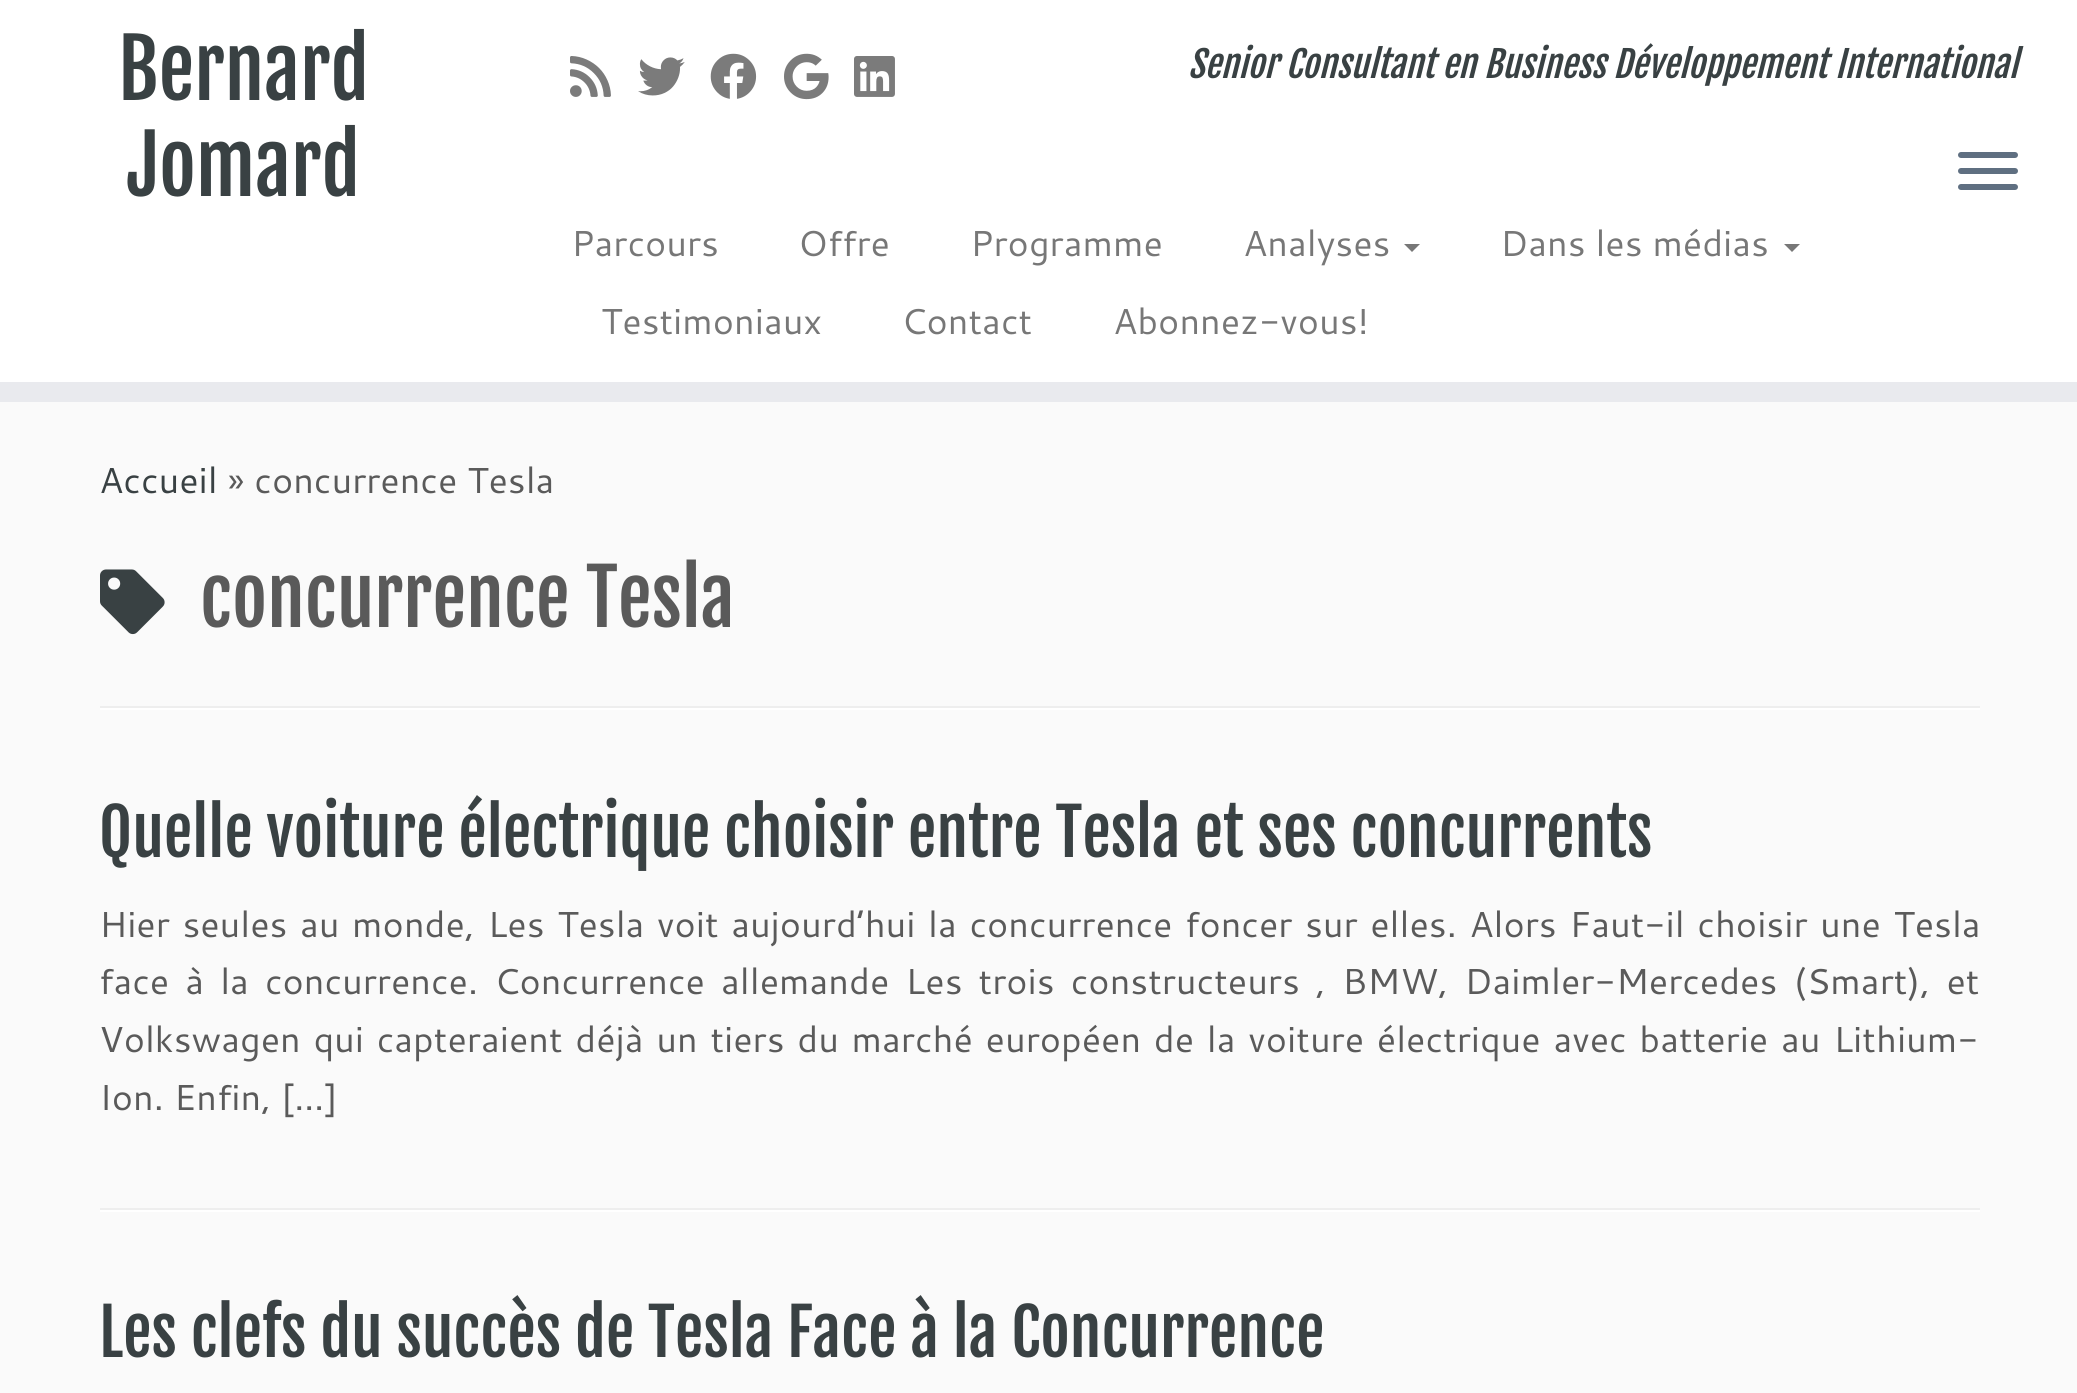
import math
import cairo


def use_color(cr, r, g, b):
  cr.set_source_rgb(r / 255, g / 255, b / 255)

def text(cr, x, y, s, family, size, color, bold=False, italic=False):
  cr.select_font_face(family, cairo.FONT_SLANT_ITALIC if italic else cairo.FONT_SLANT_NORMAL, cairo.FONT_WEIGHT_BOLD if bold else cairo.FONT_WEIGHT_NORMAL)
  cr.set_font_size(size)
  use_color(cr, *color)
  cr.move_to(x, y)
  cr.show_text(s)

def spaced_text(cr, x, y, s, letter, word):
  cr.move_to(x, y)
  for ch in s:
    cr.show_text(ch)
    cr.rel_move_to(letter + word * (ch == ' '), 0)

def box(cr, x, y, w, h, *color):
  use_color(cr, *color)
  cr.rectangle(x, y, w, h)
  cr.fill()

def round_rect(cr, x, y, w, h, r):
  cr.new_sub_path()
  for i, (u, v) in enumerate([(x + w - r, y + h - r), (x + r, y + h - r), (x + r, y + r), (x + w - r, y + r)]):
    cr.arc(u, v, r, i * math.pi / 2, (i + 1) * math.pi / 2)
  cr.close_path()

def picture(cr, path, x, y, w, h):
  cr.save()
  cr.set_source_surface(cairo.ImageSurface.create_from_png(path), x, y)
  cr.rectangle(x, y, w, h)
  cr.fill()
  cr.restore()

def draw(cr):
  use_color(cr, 250, 250, 250)
  cr.paint()
  box(cr, 0, 0, 2077, 382, 255, 255, 255)
  box(cr, 0, 382, 2077, 20, 233, 234, 238)
  picture(cr, "img_01.png", 570, 56, 41, 41)
  picture(cr, "img_02.png", 638, 57, 47, 39)
  picture(cr, "img_03.png", 710, 53, 47, 46)
  picture(cr, "img_04.png", 784, 53, 45, 47)
  picture(cr, "img_05.png", 854, 56, 41, 41)
  use_color(cr, 95, 111, 129)
  round_rect(cr, 1958, 152, 60, 6, 3)
  cr.fill()
  round_rect(cr, 1958, 168, 60, 6, 3)
  cr.fill()
  round_rect(cr, 1958, 184, 60, 6, 3)
  cr.fill()
  use_color(cr, 119, 119, 119)
  cr.new_path()
  cr.move_to(1404, 244)
  cr.line_to(1420, 244)
  cr.line_to(1412, 252)
  cr.close_path()
  cr.fill()
  cr.new_path()
  cr.move_to(1784, 244)
  cr.line_to(1800, 244)
  cr.line_to(1792, 252)
  cr.close_path()
  cr.fill()
  picture(cr, "img_06.png", 100, 569, 65, 66)
  box(cr, 100, 706, 1880, 2, 238, 238, 238)
  box(cr, 100, 708, 1880, 2, 255, 255, 255)
  box(cr, 100, 1208, 1880, 2, 238, 238, 238)
  box(cr, 100, 1210, 1880, 2, 255, 255, 255)
  text(cr, 118, 100, "Bernard", "Fjalla One", 80, (57, 65, 67))
  text(cr, 127, 196, "Jomard", "Fjalla One", 80, (57, 65, 67))
  text(cr, 1188, 78, "Senior Consultant en Business Développement International", "Fjalla One", 36, (57, 65, 67), italic=True)
  text(cr, 571, 256, "Parcours", "Cantarell", 36, (119, 119, 119))
  text(cr, 798, 256, "Offre", "Cantarell", 36, (119, 119, 119))
  text(cr, 970, 256, "Programme", "Cantarell", 36, (119, 119, 119))
  text(cr, 1243, 256, "Analyses", "Cantarell", 36, (119, 119, 119))
  text(cr, 1500, 256, "Dans les médias", "Cantarell", 36, (119, 119, 119))
  text(cr, 601, 334, "Testimoniaux", "Cantarell", 36, (119, 119, 119))
  text(cr, 901, 334, "Contact", "Cantarell", 36, (119, 119, 119))
  text(cr, 1113, 334, "Abonnez-vous!", "Cantarell", 36, (119, 119, 119))
  text(cr, 99, 493, "Accueil", "Cantarell", 36, (57, 65, 67))
  text(cr, 228, 493, "» concurrence Tesla", "Cantarell", 36, (90, 90, 90))
  text(cr, 200, 627, "concurrence Tesla", "Fjalla One", 76, (90, 90, 90))
  text(cr, 99, 857, "Quelle voiture électrique choisir entre Tesla et ses concurrents", "Fjalla One", 64, (57, 65, 67))
  cr.select_font_face("Cantarell")
  cr.set_font_size(36)
  use_color(cr, 90, 90, 90)
  spaced_text(cr, 99, 937, "Hier seules au monde, Les Tesla voit aujourd’hui la concurrence foncer sur elles. Alors Faut-il choisir une Tesla", 0, 2.75)
  spaced_text(cr, 99, 994, "face à la concurrence. Concurrence allemande Les trois constructeurs , BMW, Daimler-Mercedes (Smart), et", 0, 6.25)
  spaced_text(cr, 99, 1052, "Volkswagen qui capteraient déjà un tiers du marché européen de la voiture électrique avec batterie au Lithium-", 0, 2.9)
  text(cr, 99, 1110, "Ion. Enfin, […]", "Cantarell", 36, (90, 90, 90))
  text(cr, 99, 1357, "Les clefs du succès de Tesla Face à la Concurrence", "Fjalla One", 64, (57, 65, 67))


surface = cairo.ImageSurface(cairo.FORMAT_RGB24, 2077, 1393)
cr = cairo.Context(surface)
options = cairo.FontOptions()
options.set_hint_metrics(cairo.HINT_METRICS_OFF)
options.set_hint_style(cairo.HINT_STYLE_NONE)
cr.set_font_options(options)
cr.set_miter_limit(4)
draw(cr)
surface.write_to_png("out.png")
